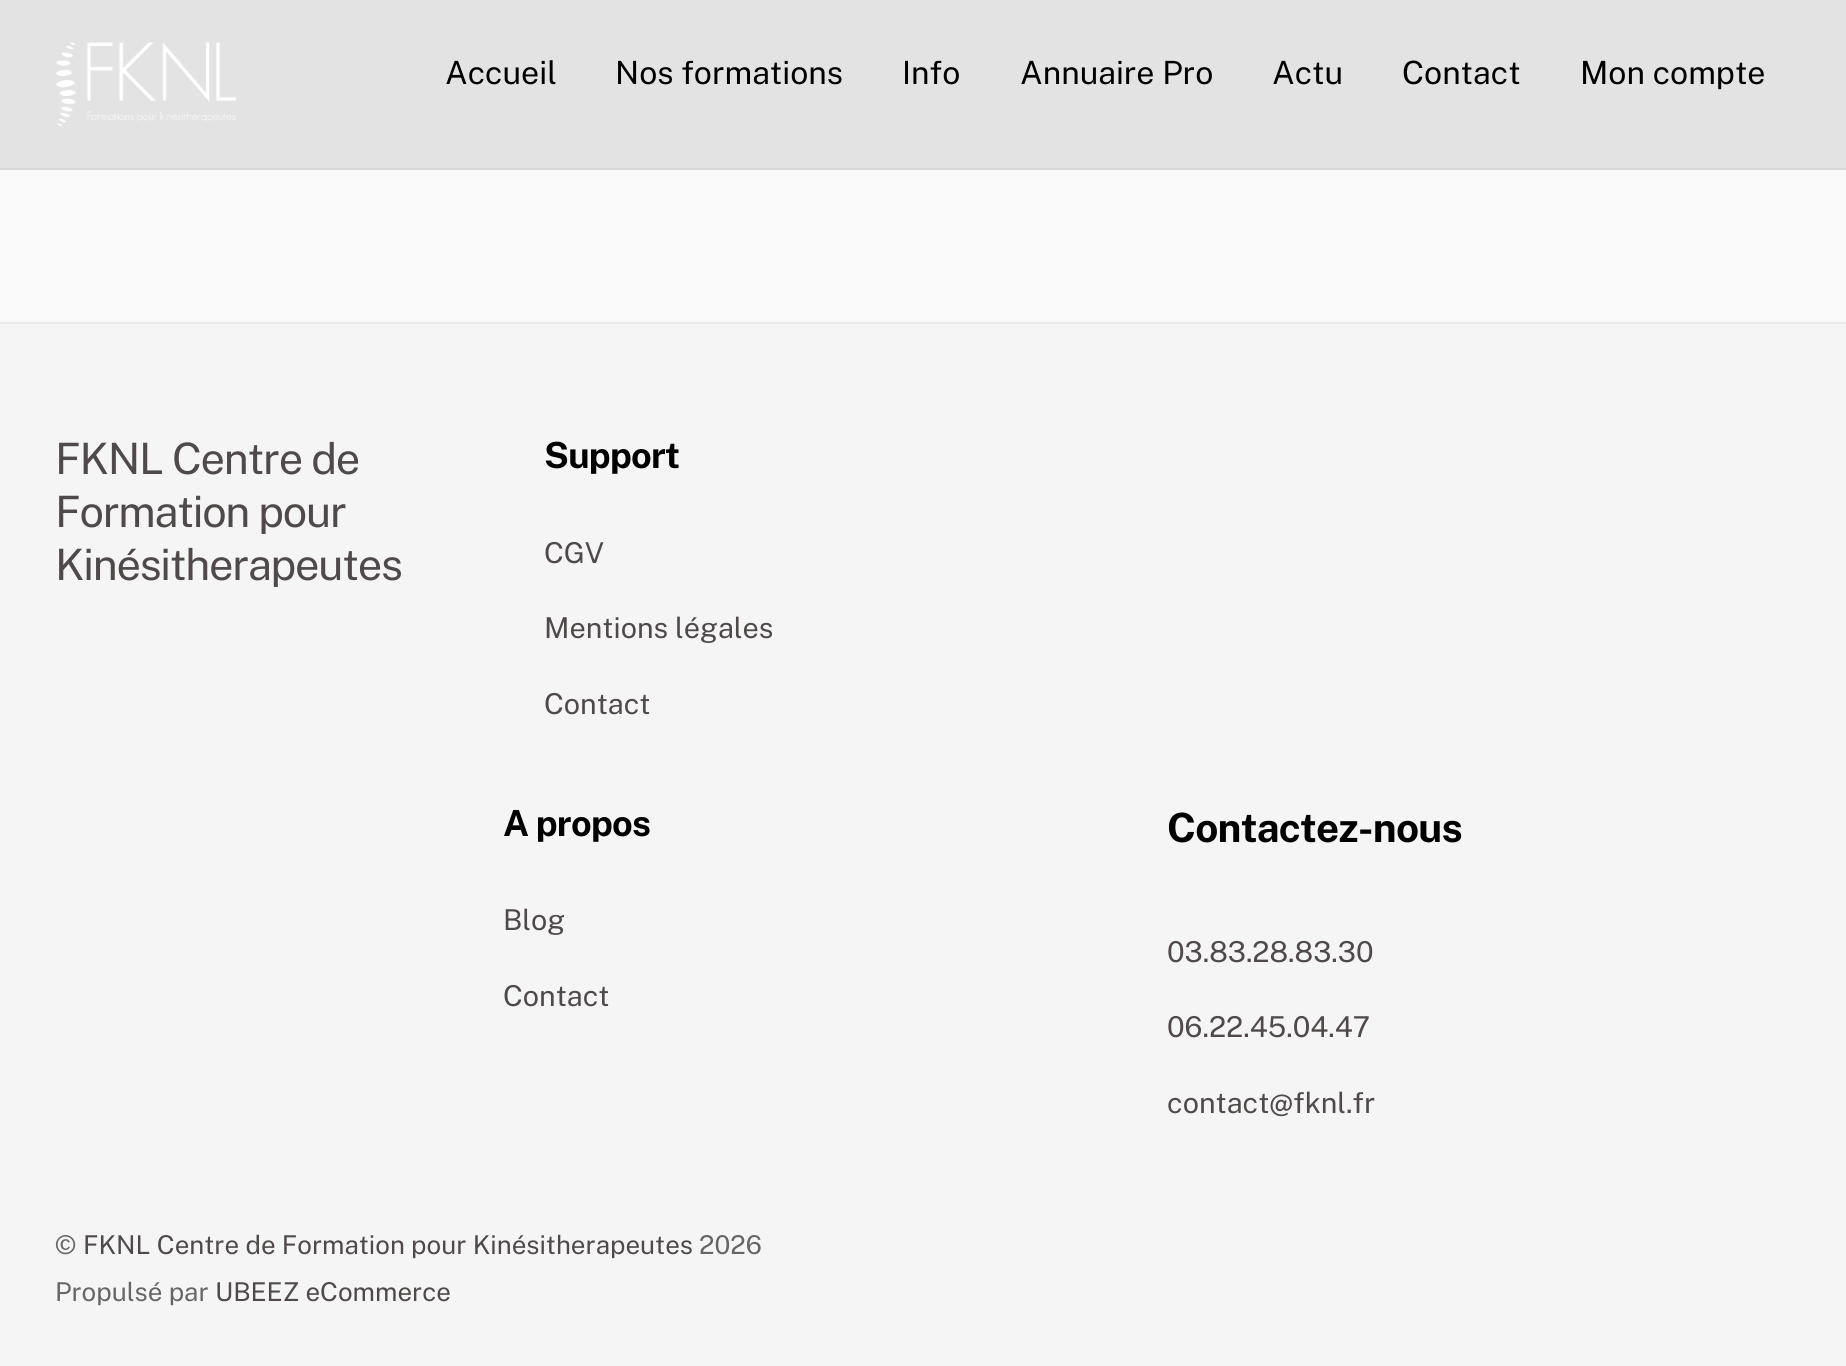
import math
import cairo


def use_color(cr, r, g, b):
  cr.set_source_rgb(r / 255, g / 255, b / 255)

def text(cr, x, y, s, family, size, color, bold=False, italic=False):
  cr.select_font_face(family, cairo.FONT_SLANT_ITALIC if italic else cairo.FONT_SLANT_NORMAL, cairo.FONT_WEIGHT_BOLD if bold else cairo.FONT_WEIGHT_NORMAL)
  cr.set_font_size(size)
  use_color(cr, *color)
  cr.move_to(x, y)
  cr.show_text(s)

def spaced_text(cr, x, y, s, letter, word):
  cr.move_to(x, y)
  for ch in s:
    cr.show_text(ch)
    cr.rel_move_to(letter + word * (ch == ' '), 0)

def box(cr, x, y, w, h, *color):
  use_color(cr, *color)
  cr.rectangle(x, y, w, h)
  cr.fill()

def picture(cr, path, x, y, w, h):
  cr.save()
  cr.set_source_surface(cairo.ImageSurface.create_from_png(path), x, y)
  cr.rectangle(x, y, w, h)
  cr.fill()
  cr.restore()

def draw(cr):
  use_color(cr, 249, 249, 249)
  cr.paint()
  box(cr, 0, 0, 1846, 168, 227, 227, 227)
  box(cr, 0, 168, 1846, 2, 216, 216, 216)
  picture(cr, "img_01.png", 55, 42, 181, 84)
  box(cr, 0, 324, 1846, 1042, 245, 245, 245)
  box(cr, 0, 322, 1846, 2, 233, 233, 233)
  text(cr, 445, 84, "Accueil", "Public Sans", 32, (0, 0, 0))
  text(cr, 615, 84, "Nos formations", "Public Sans", 32, (0, 0, 0))
  text(cr, 902, 84, "Info", "Public Sans", 32, (0, 0, 0))
  text(cr, 1020, 84, "Annuaire Pro", "Public Sans", 32, (0, 0, 0))
  text(cr, 1272, 84, "Actu", "Public Sans", 32, (0, 0, 0))
  text(cr, 1402, 84, "Contact", "Public Sans", 32, (0, 0, 0))
  text(cr, 1580, 84, "Mon compte", "Public Sans", 32, (0, 0, 0))
  cr.set_font_size(43.25)
  use_color(cr, 79, 73, 73)
  spaced_text(cr, 55, 474, "FKNL Centre de", -1.25, 0)
  spaced_text(cr, 55, 527, "Formation pour", -1.25, 0)
  spaced_text(cr, 55, 580, "Kinésitherapeutes", -1.25, 0)
  cr.select_font_face("Public Sans", cairo.FONT_SLANT_NORMAL, cairo.FONT_WEIGHT_BOLD)
  cr.set_font_size(36)
  use_color(cr, 0, 0, 0)
  spaced_text(cr, 544, 468, "Support", -0.75, 0)
  text(cr, 544, 563, "CGV", "Public Sans", 28.75, (79, 73, 73))
  text(cr, 544, 638, "Mentions légales", "Public Sans", 28.75, (79, 73, 73))
  text(cr, 544, 714, "Contact", "Public Sans", 28.75, (79, 73, 73))
  cr.select_font_face("Public Sans", cairo.FONT_SLANT_NORMAL, cairo.FONT_WEIGHT_BOLD)
  cr.set_font_size(36)
  use_color(cr, 0, 0, 0)
  spaced_text(cr, 503, 836, "A propos", -0.75, 0)
  text(cr, 503, 930, "Blog", "Public Sans", 28.75, (79, 73, 73))
  text(cr, 503, 1006, "Contact", "Public Sans", 28.75, (79, 73, 73))
  cr.select_font_face("Public Sans", cairo.FONT_SLANT_NORMAL, cairo.FONT_WEIGHT_BOLD)
  cr.set_font_size(40.25)
  use_color(cr, 0, 0, 0)
  spaced_text(cr, 1167, 842, "Contactez-nous", -0.75, 0)
  text(cr, 1167, 962, "03.83.28.83.30", "Public Sans", 28.75, (79, 73, 73))
  text(cr, 1167, 1037, "06.22.45.04.47", "Public Sans", 28.75, (79, 73, 73))
  text(cr, 1167, 1113, "contact@fknl.fr", "Public Sans", 28.75, (79, 73, 73))
  text(cr, 55, 1254, "©", "Public Sans", 25.9, (102, 102, 102))
  text(cr, 83, 1254, "FKNL Centre de Formation pour Kinésitherapeutes", "Public Sans", 25.9, (79, 73, 73))
  text(cr, 699, 1254, "2026", "Public Sans", 25.9, (102, 102, 102))
  text(cr, 55, 1301, "Propulsé par", "Public Sans", 25.9, (102, 102, 102))
  text(cr, 215, 1301, "UBEEZ eCommerce", "Public Sans", 25.9, (79, 73, 73))


surface = cairo.ImageSurface(cairo.FORMAT_RGB24, 1846, 1366)
cr = cairo.Context(surface)
options = cairo.FontOptions()
options.set_hint_metrics(cairo.HINT_METRICS_OFF)
options.set_hint_style(cairo.HINT_STYLE_NONE)
cr.set_font_options(options)
cr.set_miter_limit(4)
draw(cr)
surface.write_to_png("out.png")
